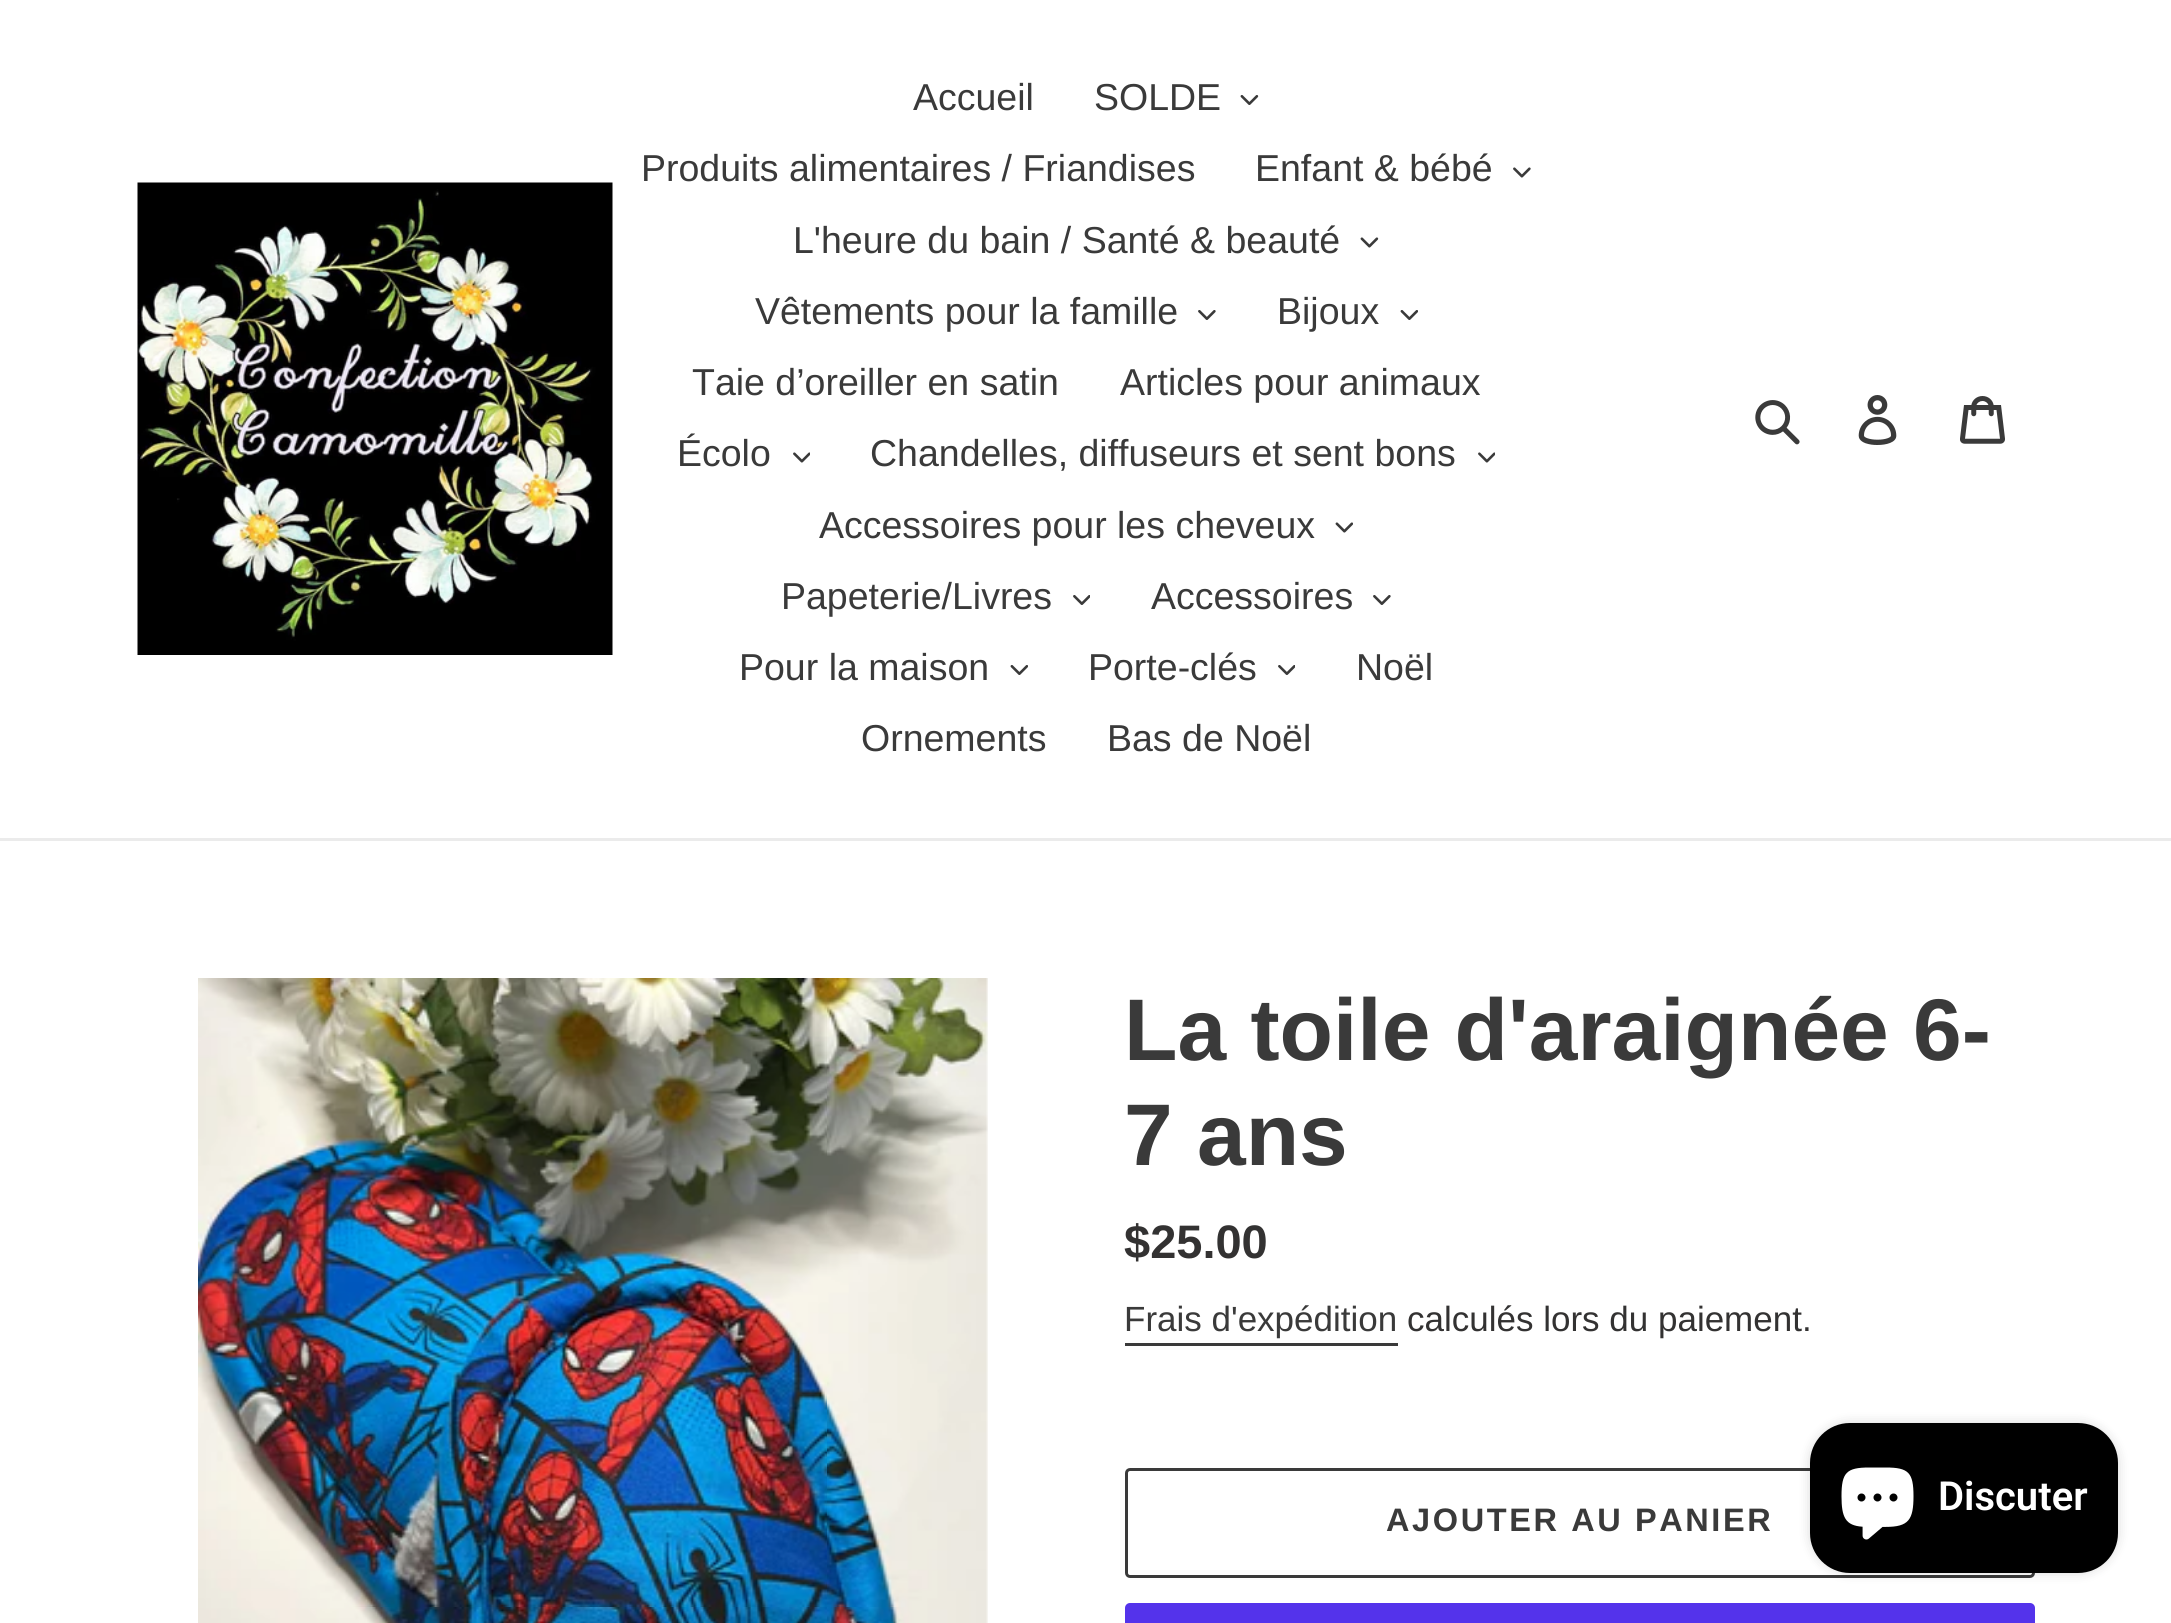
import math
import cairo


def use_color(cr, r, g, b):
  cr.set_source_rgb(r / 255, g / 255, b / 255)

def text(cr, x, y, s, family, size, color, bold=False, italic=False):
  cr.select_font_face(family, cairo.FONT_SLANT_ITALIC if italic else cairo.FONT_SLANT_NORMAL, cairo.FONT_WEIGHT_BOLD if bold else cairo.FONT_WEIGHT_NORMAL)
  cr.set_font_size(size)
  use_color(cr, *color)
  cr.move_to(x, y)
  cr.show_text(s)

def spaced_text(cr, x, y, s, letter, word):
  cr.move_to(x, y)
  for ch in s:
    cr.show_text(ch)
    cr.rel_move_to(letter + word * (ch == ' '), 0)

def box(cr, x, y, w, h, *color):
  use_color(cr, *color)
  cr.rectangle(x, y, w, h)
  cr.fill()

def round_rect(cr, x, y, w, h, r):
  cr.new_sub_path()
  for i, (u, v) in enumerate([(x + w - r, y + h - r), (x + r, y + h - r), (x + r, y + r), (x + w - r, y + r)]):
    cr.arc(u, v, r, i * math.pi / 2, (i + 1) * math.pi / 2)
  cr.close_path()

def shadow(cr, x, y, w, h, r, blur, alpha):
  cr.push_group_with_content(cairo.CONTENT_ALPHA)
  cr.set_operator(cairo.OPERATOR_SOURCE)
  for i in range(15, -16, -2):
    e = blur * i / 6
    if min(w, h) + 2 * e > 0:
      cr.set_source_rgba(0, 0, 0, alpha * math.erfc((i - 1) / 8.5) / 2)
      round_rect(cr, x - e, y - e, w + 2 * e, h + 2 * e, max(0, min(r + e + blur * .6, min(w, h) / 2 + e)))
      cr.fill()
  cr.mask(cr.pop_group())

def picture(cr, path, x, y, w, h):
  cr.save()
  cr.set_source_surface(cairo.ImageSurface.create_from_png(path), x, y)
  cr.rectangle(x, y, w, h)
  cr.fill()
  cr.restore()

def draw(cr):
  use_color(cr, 255, 255, 255)
  cr.paint()
  box(cr, 0, 838, 2171, 3, 235, 235, 235)
  picture(cr, "img_01.png", 137, 182, 476, 473)
  picture(cr, "img_02.png", 1240, 95, 19, 10)
  picture(cr, "img_03.png", 1513, 167, 18, 11)
  picture(cr, "img_04.png", 1360, 237, 19, 11)
  picture(cr, "img_05.png", 1198, 310, 18, 10)
  picture(cr, "img_06.png", 1400, 310, 18, 10)
  picture(cr, "img_07.png", 793, 452, 17, 11)
  picture(cr, "img_07.png", 1478, 452, 17, 11)
  picture(cr, "img_08.png", 1335, 522, 18, 11)
  picture(cr, "img_09.png", 1073, 595, 17, 10)
  picture(cr, "img_05.png", 1373, 595, 18, 10)
  picture(cr, "img_06.png", 1010, 665, 18, 10)
  picture(cr, "img_09.png", 1278, 665, 17, 10)
  picture(cr, "img_10.png", 1755, 400, 45, 45)
  picture(cr, "img_11.png", 1858, 395, 39, 50)
  picture(cr, "img_12.png", 1960, 396, 45, 48)
  picture(cr, "img_13.png", 198, 978, 790, 645)
  box(cr, 1125, 1343, 273, 3, 58, 58, 58)
  round_rect(cr, 1126.5, 1469.5, 907, 107, 3.5)
  cr.set_line_width(3)
  cr.stroke()
  use_color(cr, 84, 51, 235)
  round_rect(cr, 1125, 1603, 910, 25, 5)
  cr.fill()
  use_color(cr, 0, 0, 0)
  shadow(cr, 1810, 1423, 308, 150, 40, 6, 0.15)
  use_color(cr, 0, 0, 0)
  round_rect(cr, 1810, 1423, 308, 150, 40)
  cr.fill()
  picture(cr, "img_14.png", 1841, 1467, 73, 73)
  text(cr, 913, 110, "Accueil", "Liberation Sans", 37.5, (58, 58, 58))
  text(cr, 1094, 110, "SOLDE", "Liberation Sans", 37.5, (58, 58, 58))
  text(cr, 641, 181, "Produits alimentaires / Friandises", "Liberation Sans", 37.5, (58, 58, 58))
  text(cr, 1255, 181, "Enfant & bébé", "Liberation Sans", 37.5, (58, 58, 58))
  text(cr, 793, 253, "L'heure du bain / Santé & beauté", "Liberation Sans", 37.5, (58, 58, 58))
  text(cr, 755, 324, "Vêtements pour la famille", "Liberation Sans", 37.5, (58, 58, 58))
  text(cr, 1277, 324, "Bijoux", "Liberation Sans", 37.5, (58, 58, 58))
  text(cr, 692, 395, "Taie d’oreiller en satin", "Liberation Sans", 37.5, (58, 58, 58))
  text(cr, 1120, 395, "Articles pour animaux", "Liberation Sans", 37.5, (58, 58, 58))
  text(cr, 677, 466, "Écolo", "Liberation Sans", 37.5, (58, 58, 58))
  text(cr, 870, 466, "Chandelles, diffuseurs et sent bons", "Liberation Sans", 37.5, (58, 58, 58))
  text(cr, 819, 538, "Accessoires pour les cheveux", "Liberation Sans", 37.5, (58, 58, 58))
  text(cr, 781, 609, "Papeterie/Livres", "Liberation Sans", 37.5, (58, 58, 58))
  text(cr, 1151, 609, "Accessoires", "Liberation Sans", 37.5, (58, 58, 58))
  text(cr, 739, 680, "Pour la maison", "Liberation Sans", 37.5, (58, 58, 58))
  text(cr, 1088, 680, "Porte-clés", "Liberation Sans", 37.5, (58, 58, 58))
  text(cr, 1356, 680, "Noël", "Liberation Sans", 37.5, (58, 58, 58))
  text(cr, 861, 751, "Ornements", "Liberation Sans", 37.5, (58, 58, 58))
  text(cr, 1107, 751, "Bas de Noël", "Liberation Sans", 37.5, (58, 58, 58))
  text(cr, 1124, 1060, "La toile d'araignée 6-", "Liberation Sans", 87.5, (58, 58, 58), bold=True)
  text(cr, 1124, 1165, "7 ans", "Liberation Sans", 87.5, (58, 58, 58), bold=True)
  text(cr, 1124, 1258, "$25.00", "Liberation Sans", 47, (51, 50, 50), bold=True)
  text(cr, 1124, 1331, "Frais d'expédition", "Liberation Sans", 35, (58, 58, 58))
  text(cr, 1407, 1331, "calculés lors du paiement.", "Liberation Sans", 35, (51, 50, 50))
  cr.select_font_face("Liberation Sans", cairo.FONT_SLANT_NORMAL, cairo.FONT_WEIGHT_BOLD)
  cr.set_font_size(32.5)
  use_color(cr, 58, 58, 58)
  spaced_text(cr, 1386, 1531, "AJOUTER AU PANIER", 2.6, 0)
  text(cr, 1938, 1510, "Discuter", "Roboto SemiBold", 40, (255, 255, 255))


surface = cairo.ImageSurface(cairo.FORMAT_RGB24, 2171, 1623)
cr = cairo.Context(surface)
options = cairo.FontOptions()
options.set_hint_metrics(cairo.HINT_METRICS_OFF)
options.set_hint_style(cairo.HINT_STYLE_NONE)
cr.set_font_options(options)
cr.set_miter_limit(4)
draw(cr)
surface.write_to_png("out.png")
